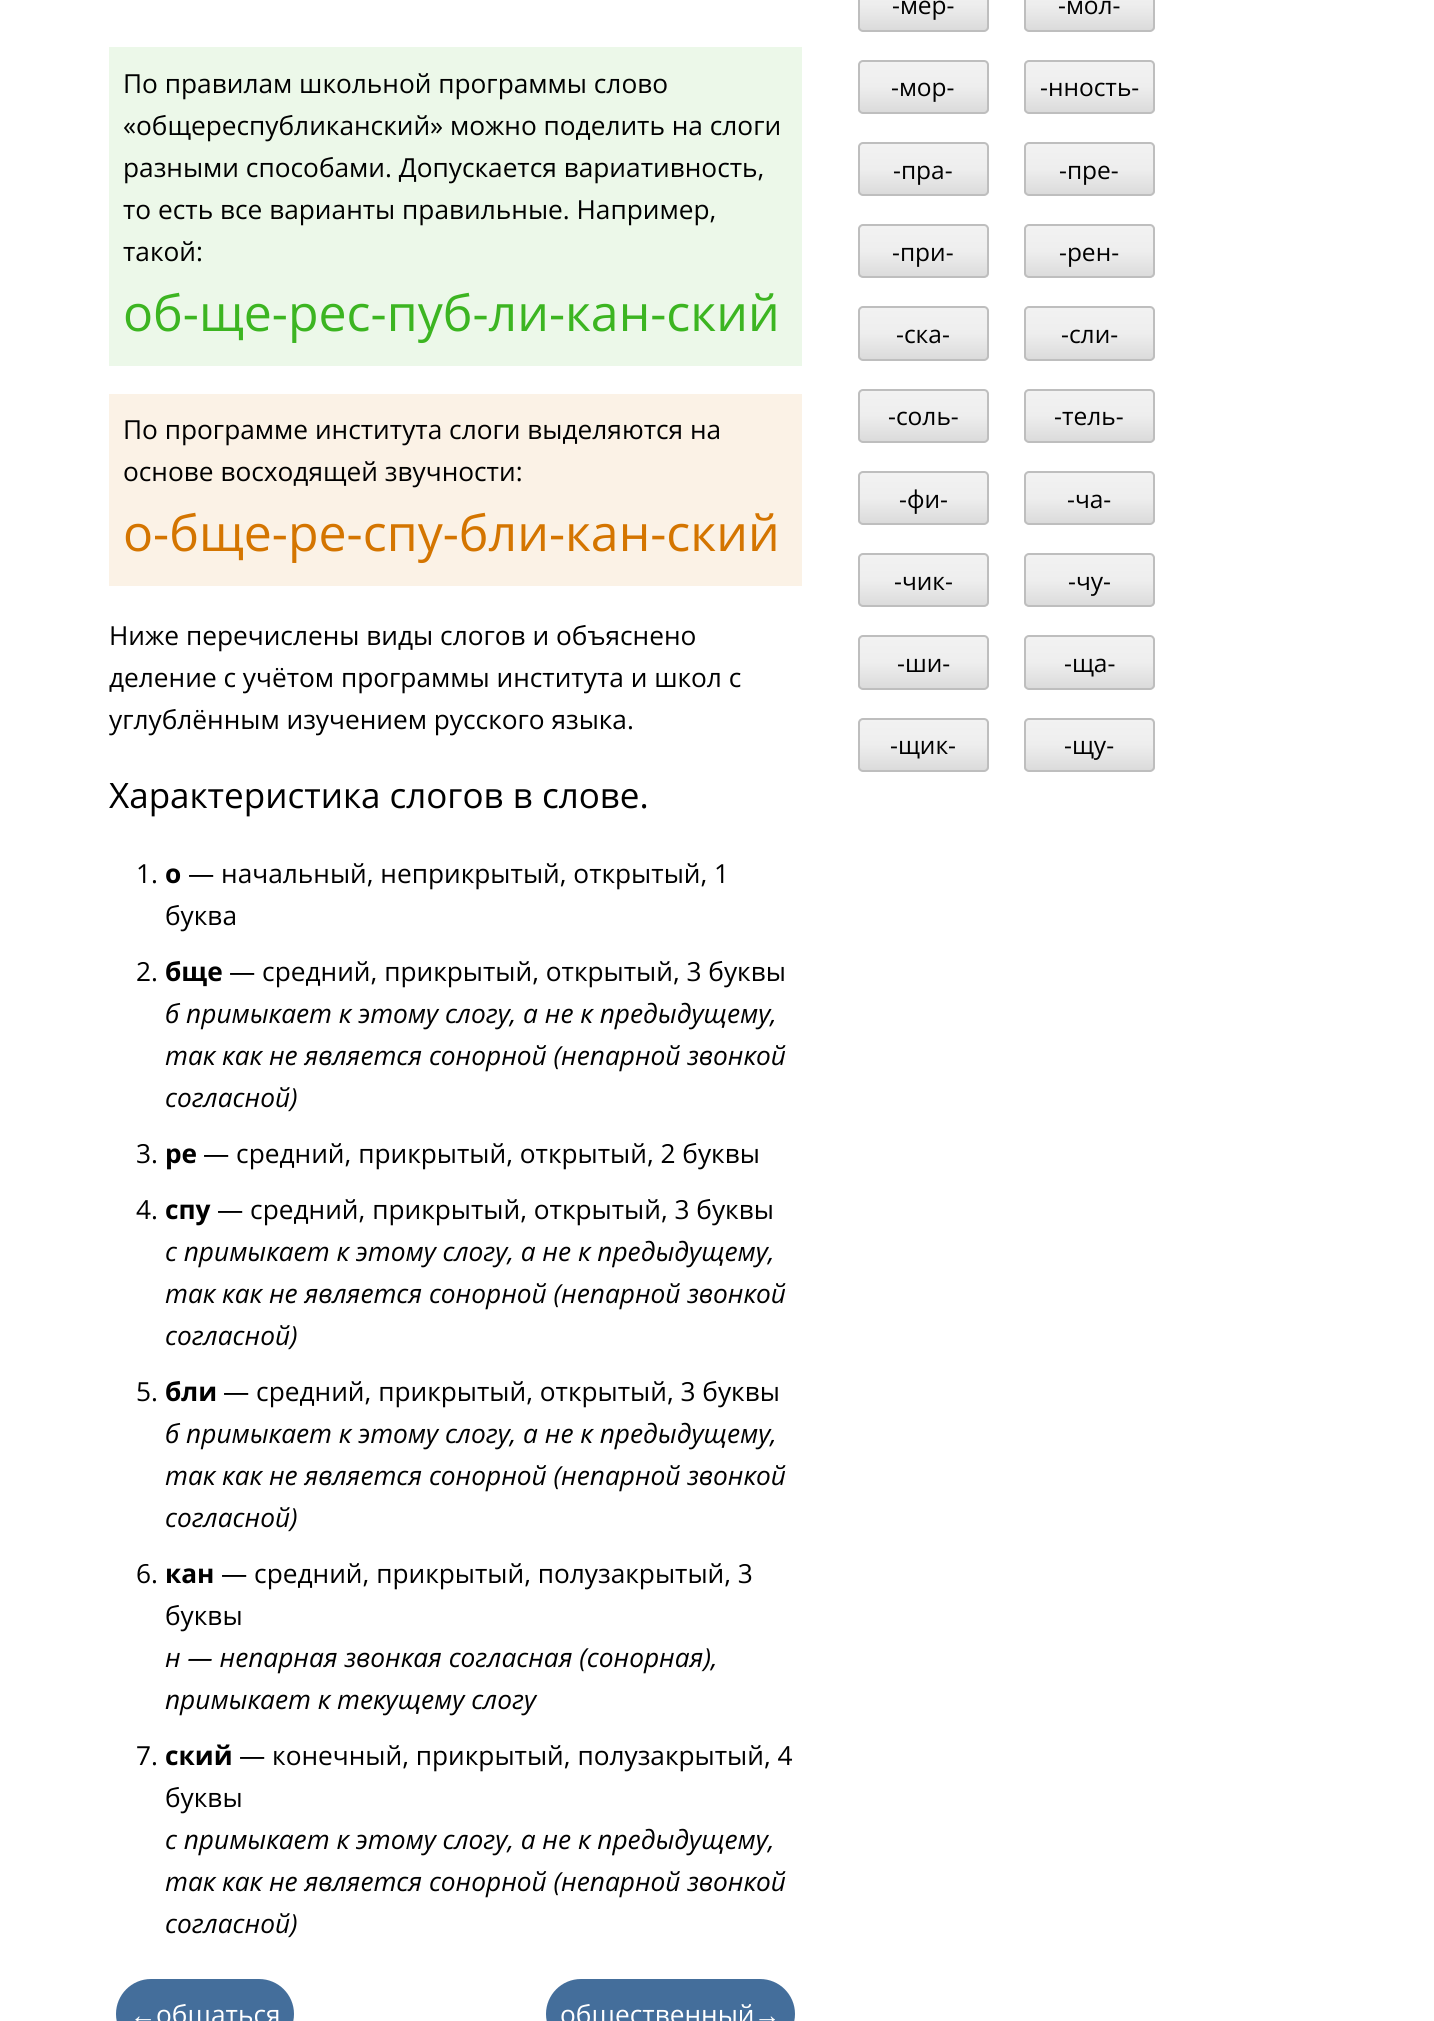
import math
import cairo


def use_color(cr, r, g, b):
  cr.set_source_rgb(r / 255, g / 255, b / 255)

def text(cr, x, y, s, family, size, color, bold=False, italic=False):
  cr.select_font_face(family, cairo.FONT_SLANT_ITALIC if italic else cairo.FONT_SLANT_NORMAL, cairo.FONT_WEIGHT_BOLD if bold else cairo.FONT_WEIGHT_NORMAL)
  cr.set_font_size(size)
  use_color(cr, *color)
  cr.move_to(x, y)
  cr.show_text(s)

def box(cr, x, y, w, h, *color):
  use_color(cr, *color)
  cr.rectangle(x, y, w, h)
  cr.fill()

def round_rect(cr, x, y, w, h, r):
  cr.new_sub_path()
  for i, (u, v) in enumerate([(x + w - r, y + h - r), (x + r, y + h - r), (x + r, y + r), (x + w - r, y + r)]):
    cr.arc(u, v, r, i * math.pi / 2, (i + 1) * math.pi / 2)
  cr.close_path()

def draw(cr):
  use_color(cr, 255, 255, 255)
  cr.paint()
  box(cr, 109, 47, 693, 319, 236, 248, 233)
  box(cr, 109, 394, 693, 192, 251, 242, 230)
  use_color(cr, 68, 110, 155)
  round_rect(cr, 116, 1979, 178, 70, 35)
  cr.fill()
  round_rect(cr, 546, 1979, 249, 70, 35)
  cr.fill()
  cr.save()
  round_rect(cr, 858, -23, 131, 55, 5)
  cr.clip()
  gradient = cairo.LinearGradient(923, -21, 923, 30)
  gradient.add_color_stop_rgba(0, 0.949, 0.949, 0.949, 1)
  gradient.add_color_stop_rgba(0.5, 0.933, 0.933, 0.933, 1)
  gradient.add_color_stop_rgba(1, 0.859, 0.859, 0.859, 1)
  cr.set_source(gradient)
  cr.rectangle(858, 0, 131, 30)
  cr.fill()
  cr.restore()
  round_rect(cr, 859, -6, 129, 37, 4)
  use_color(cr, 190, 190, 190)
  cr.stroke()
  cr.save()
  round_rect(cr, 1024, -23, 131, 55, 5)
  cr.clip()
  gradient = cairo.LinearGradient(1089, -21, 1089, 30)
  gradient.add_color_stop_rgba(0, 0.949, 0.949, 0.949, 1)
  gradient.add_color_stop_rgba(0.5, 0.933, 0.933, 0.933, 1)
  gradient.add_color_stop_rgba(1, 0.859, 0.859, 0.859, 1)
  cr.set_source(gradient)
  cr.rectangle(1024, 0, 131, 30)
  cr.fill()
  cr.restore()
  round_rect(cr, 1025, -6, 129, 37, 4)
  cr.stroke()
  cr.save()
  round_rect(cr, 858, 60, 131, 54, 5)
  cr.clip()
  gradient = cairo.LinearGradient(923, 61, 923, 112)
  gradient.add_color_stop_rgba(0, 0.949, 0.949, 0.949, 1)
  gradient.add_color_stop_rgba(0.5, 0.933, 0.933, 0.933, 1)
  gradient.add_color_stop_rgba(1, 0.859, 0.859, 0.859, 1)
  cr.set_source(gradient)
  cr.rectangle(858, 61, 131, 51)
  cr.fill()
  cr.restore()
  round_rect(cr, 859, 61, 129, 52, 4)
  cr.stroke()
  cr.save()
  round_rect(cr, 1024, 60, 131, 54, 5)
  cr.clip()
  gradient = cairo.LinearGradient(1089, 61, 1089, 112)
  gradient.add_color_stop_rgba(0, 0.949, 0.949, 0.949, 1)
  gradient.add_color_stop_rgba(0.5, 0.933, 0.933, 0.933, 1)
  gradient.add_color_stop_rgba(1, 0.859, 0.859, 0.859, 1)
  cr.set_source(gradient)
  cr.rectangle(1024, 61, 131, 51)
  cr.fill()
  cr.restore()
  round_rect(cr, 1025, 61, 129, 52, 4)
  cr.stroke()
  cr.save()
  round_rect(cr, 858, 142, 131, 54, 5)
  cr.clip()
  gradient = cairo.LinearGradient(923, 144, 923, 194)
  gradient.add_color_stop_rgba(0, 0.949, 0.949, 0.949, 1)
  gradient.add_color_stop_rgba(0.5, 0.933, 0.933, 0.933, 1)
  gradient.add_color_stop_rgba(1, 0.859, 0.859, 0.859, 1)
  cr.set_source(gradient)
  cr.rectangle(858, 144, 131, 50)
  cr.fill()
  cr.restore()
  round_rect(cr, 859, 143, 129, 52, 4)
  cr.stroke()
  cr.save()
  round_rect(cr, 1024, 142, 131, 54, 5)
  cr.clip()
  gradient = cairo.LinearGradient(1089, 144, 1089, 194)
  gradient.add_color_stop_rgba(0, 0.949, 0.949, 0.949, 1)
  gradient.add_color_stop_rgba(0.5, 0.933, 0.933, 0.933, 1)
  gradient.add_color_stop_rgba(1, 0.859, 0.859, 0.859, 1)
  cr.set_source(gradient)
  cr.rectangle(1024, 144, 131, 50)
  cr.fill()
  cr.restore()
  round_rect(cr, 1025, 143, 129, 52, 4)
  cr.stroke()
  cr.save()
  round_rect(cr, 858, 224, 131, 54, 5)
  cr.clip()
  gradient = cairo.LinearGradient(923, 226, 923, 277)
  gradient.add_color_stop_rgba(0, 0.949, 0.949, 0.949, 1)
  gradient.add_color_stop_rgba(0.5, 0.933, 0.933, 0.933, 1)
  gradient.add_color_stop_rgba(1, 0.859, 0.859, 0.859, 1)
  cr.set_source(gradient)
  cr.rectangle(858, 226, 131, 51)
  cr.fill()
  cr.restore()
  round_rect(cr, 859, 225, 129, 52, 4)
  cr.stroke()
  cr.save()
  round_rect(cr, 1024, 224, 131, 54, 5)
  cr.clip()
  gradient = cairo.LinearGradient(1089, 226, 1089, 277)
  gradient.add_color_stop_rgba(0, 0.949, 0.949, 0.949, 1)
  gradient.add_color_stop_rgba(0.5, 0.933, 0.933, 0.933, 1)
  gradient.add_color_stop_rgba(1, 0.859, 0.859, 0.859, 1)
  cr.set_source(gradient)
  cr.rectangle(1024, 226, 131, 51)
  cr.fill()
  cr.restore()
  round_rect(cr, 1025, 225, 129, 52, 4)
  cr.stroke()
  cr.save()
  round_rect(cr, 858, 306, 131, 55, 5)
  cr.clip()
  gradient = cairo.LinearGradient(923, 308, 923, 359)
  gradient.add_color_stop_rgba(0, 0.949, 0.949, 0.949, 1)
  gradient.add_color_stop_rgba(0.5, 0.933, 0.933, 0.933, 1)
  gradient.add_color_stop_rgba(1, 0.859, 0.859, 0.859, 1)
  cr.set_source(gradient)
  cr.rectangle(858, 308, 131, 51)
  cr.fill()
  cr.restore()
  round_rect(cr, 859, 307, 129, 53, 4)
  cr.stroke()
  cr.save()
  round_rect(cr, 1024, 306, 131, 55, 5)
  cr.clip()
  gradient = cairo.LinearGradient(1089, 308, 1089, 359)
  gradient.add_color_stop_rgba(0, 0.949, 0.949, 0.949, 1)
  gradient.add_color_stop_rgba(0.5, 0.933, 0.933, 0.933, 1)
  gradient.add_color_stop_rgba(1, 0.859, 0.859, 0.859, 1)
  cr.set_source(gradient)
  cr.rectangle(1024, 308, 131, 51)
  cr.fill()
  cr.restore()
  round_rect(cr, 1025, 307, 129, 53, 4)
  cr.stroke()
  cr.save()
  round_rect(cr, 858, 389, 131, 54, 5)
  cr.clip()
  gradient = cairo.LinearGradient(923, 390, 923, 441)
  gradient.add_color_stop_rgba(0, 0.949, 0.949, 0.949, 1)
  gradient.add_color_stop_rgba(0.5, 0.933, 0.933, 0.933, 1)
  gradient.add_color_stop_rgba(1, 0.859, 0.859, 0.859, 1)
  cr.set_source(gradient)
  cr.rectangle(858, 390, 131, 51)
  cr.fill()
  cr.restore()
  round_rect(cr, 859, 390, 129, 52, 4)
  cr.stroke()
  cr.save()
  round_rect(cr, 1024, 389, 131, 54, 5)
  cr.clip()
  gradient = cairo.LinearGradient(1089, 390, 1089, 441)
  gradient.add_color_stop_rgba(0, 0.949, 0.949, 0.949, 1)
  gradient.add_color_stop_rgba(0.5, 0.933, 0.933, 0.933, 1)
  gradient.add_color_stop_rgba(1, 0.859, 0.859, 0.859, 1)
  cr.set_source(gradient)
  cr.rectangle(1024, 390, 131, 51)
  cr.fill()
  cr.restore()
  round_rect(cr, 1025, 390, 129, 52, 4)
  cr.stroke()
  cr.save()
  round_rect(cr, 858, 471, 131, 54, 5)
  cr.clip()
  gradient = cairo.LinearGradient(923, 473, 923, 523)
  gradient.add_color_stop_rgba(0, 0.949, 0.949, 0.949, 1)
  gradient.add_color_stop_rgba(0.5, 0.933, 0.933, 0.933, 1)
  gradient.add_color_stop_rgba(1, 0.859, 0.859, 0.859, 1)
  cr.set_source(gradient)
  cr.rectangle(858, 473, 131, 50)
  cr.fill()
  cr.restore()
  round_rect(cr, 859, 472, 129, 52, 4)
  cr.stroke()
  cr.save()
  round_rect(cr, 1024, 471, 131, 54, 5)
  cr.clip()
  gradient = cairo.LinearGradient(1089, 473, 1089, 523)
  gradient.add_color_stop_rgba(0, 0.949, 0.949, 0.949, 1)
  gradient.add_color_stop_rgba(0.5, 0.933, 0.933, 0.933, 1)
  gradient.add_color_stop_rgba(1, 0.859, 0.859, 0.859, 1)
  cr.set_source(gradient)
  cr.rectangle(1024, 473, 131, 50)
  cr.fill()
  cr.restore()
  round_rect(cr, 1025, 472, 129, 52, 4)
  cr.stroke()
  cr.save()
  round_rect(cr, 858, 553, 131, 54, 5)
  cr.clip()
  gradient = cairo.LinearGradient(923, 555, 923, 606)
  gradient.add_color_stop_rgba(0, 0.949, 0.949, 0.949, 1)
  gradient.add_color_stop_rgba(0.5, 0.933, 0.933, 0.933, 1)
  gradient.add_color_stop_rgba(1, 0.859, 0.859, 0.859, 1)
  cr.set_source(gradient)
  cr.rectangle(858, 555, 131, 51)
  cr.fill()
  cr.restore()
  round_rect(cr, 859, 554, 129, 52, 4)
  cr.stroke()
  cr.save()
  round_rect(cr, 1024, 553, 131, 54, 5)
  cr.clip()
  gradient = cairo.LinearGradient(1089, 555, 1089, 606)
  gradient.add_color_stop_rgba(0, 0.949, 0.949, 0.949, 1)
  gradient.add_color_stop_rgba(0.5, 0.933, 0.933, 0.933, 1)
  gradient.add_color_stop_rgba(1, 0.859, 0.859, 0.859, 1)
  cr.set_source(gradient)
  cr.rectangle(1024, 555, 131, 51)
  cr.fill()
  cr.restore()
  round_rect(cr, 1025, 554, 129, 52, 4)
  cr.stroke()
  cr.save()
  round_rect(cr, 858, 635, 131, 55, 5)
  cr.clip()
  gradient = cairo.LinearGradient(923, 637, 923, 688)
  gradient.add_color_stop_rgba(0, 0.949, 0.949, 0.949, 1)
  gradient.add_color_stop_rgba(0.5, 0.933, 0.933, 0.933, 1)
  gradient.add_color_stop_rgba(1, 0.859, 0.859, 0.859, 1)
  cr.set_source(gradient)
  cr.rectangle(858, 637, 131, 51)
  cr.fill()
  cr.restore()
  round_rect(cr, 859, 636, 129, 53, 4)
  cr.stroke()
  cr.save()
  round_rect(cr, 1024, 635, 131, 55, 5)
  cr.clip()
  gradient = cairo.LinearGradient(1089, 637, 1089, 688)
  gradient.add_color_stop_rgba(0, 0.949, 0.949, 0.949, 1)
  gradient.add_color_stop_rgba(0.5, 0.933, 0.933, 0.933, 1)
  gradient.add_color_stop_rgba(1, 0.859, 0.859, 0.859, 1)
  cr.set_source(gradient)
  cr.rectangle(1024, 637, 131, 51)
  cr.fill()
  cr.restore()
  round_rect(cr, 1025, 636, 129, 53, 4)
  cr.stroke()
  cr.save()
  round_rect(cr, 858, 718, 131, 54, 5)
  cr.clip()
  gradient = cairo.LinearGradient(923, 719, 923, 770)
  gradient.add_color_stop_rgba(0, 0.949, 0.949, 0.949, 1)
  gradient.add_color_stop_rgba(0.5, 0.933, 0.933, 0.933, 1)
  gradient.add_color_stop_rgba(1, 0.859, 0.859, 0.859, 1)
  cr.set_source(gradient)
  cr.rectangle(858, 719, 131, 51)
  cr.fill()
  cr.restore()
  round_rect(cr, 859, 719, 129, 52, 4)
  cr.stroke()
  cr.save()
  round_rect(cr, 1024, 718, 131, 54, 5)
  cr.clip()
  gradient = cairo.LinearGradient(1089, 719, 1089, 770)
  gradient.add_color_stop_rgba(0, 0.949, 0.949, 0.949, 1)
  gradient.add_color_stop_rgba(0.5, 0.933, 0.933, 0.933, 1)
  gradient.add_color_stop_rgba(1, 0.859, 0.859, 0.859, 1)
  cr.set_source(gradient)
  cr.rectangle(1024, 719, 131, 51)
  cr.fill()
  cr.restore()
  round_rect(cr, 1025, 719, 129, 52, 4)
  cr.stroke()
  text(cr, 123, 93, "По правилам школьной программы слово", "Open Sans", 26.25, (0, 0, 0))
  text(cr, 123, 135, "«общереспубликанский» можно поделить на слоги", "Open Sans", 26.25, (0, 0, 0))
  text(cr, 123, 177, "разными способами. Допускается вариативность,", "Open Sans", 26.25, (0, 0, 0))
  text(cr, 123, 219, "то есть все варианты правильные. Например,", "Open Sans", 26.25, (0, 0, 0))
  text(cr, 123, 261, "такой:", "Open Sans", 26.25, (0, 0, 0))
  text(cr, 123, 331, "об-ще-рес-пуб-ли-кан-ский", "Open Sans", 50, (60, 181, 33))
  text(cr, 123, 439, "По программе института слоги выделяются на", "Open Sans", 26.25, (0, 0, 0))
  text(cr, 123, 481, "основе восходящей звучности:", "Open Sans", 26.25, (0, 0, 0))
  text(cr, 123, 551, "о-бще-ре-спу-бли-кан-ский", "Open Sans", 50, (212, 117, 0))
  text(cr, 109, 645, "Ниже перечислены виды слогов и объяснено", "Open Sans", 26.25, (0, 0, 0))
  text(cr, 109, 687, "деление с учётом программы института и школ с", "Open Sans", 26.25, (0, 0, 0))
  text(cr, 109, 729, "углублённым изучением русского языка.", "Open Sans", 26.25, (0, 0, 0))
  text(cr, 109, 808, "Характеристика слогов в слове.", "Open Sans", 35, (0, 0, 0))
  text(cr, 136, 883, "1.", "Open Sans", 26.25, (0, 0, 0))
  text(cr, 165, 883, "о", "Open Sans", 26.25, (0, 0, 0), bold=True)
  text(cr, 188, 883, "— начальный, неприкрытый, открытый, 1", "Open Sans", 26.25, (0, 0, 0))
  text(cr, 165, 925, "буква", "Open Sans", 26.25, (0, 0, 0))
  text(cr, 136, 981, "2.", "Open Sans", 26.25, (0, 0, 0))
  text(cr, 165, 981, "бще", "Open Sans", 26.25, (0, 0, 0), bold=True)
  text(cr, 229, 981, "— средний, прикрытый, открытый, 3 буквы", "Open Sans", 26.25, (0, 0, 0))
  text(cr, 165, 1023, "б примыкает к этому слогу, а не к предыдущему,", "Open Sans", 26.25, (0, 0, 0), italic=True)
  text(cr, 165, 1065, "так как не является сонорной (непарной звонкой", "Open Sans", 26.25, (0, 0, 0), italic=True)
  text(cr, 165, 1107, "согласной)", "Open Sans", 26.25, (0, 0, 0), italic=True)
  text(cr, 136, 1163, "3.", "Open Sans", 26.25, (0, 0, 0))
  text(cr, 165, 1163, "ре", "Open Sans", 26.25, (0, 0, 0), bold=True)
  text(cr, 203, 1163, "— средний, прикрытый, открытый, 2 буквы", "Open Sans", 26.25, (0, 0, 0))
  text(cr, 136, 1219, "4.", "Open Sans", 26.25, (0, 0, 0))
  text(cr, 165, 1219, "спу", "Open Sans", 26.25, (0, 0, 0), bold=True)
  text(cr, 217, 1219, "— средний, прикрытый, открытый, 3 буквы", "Open Sans", 26.25, (0, 0, 0))
  text(cr, 165, 1261, "с примыкает к этому слогу, а не к предыдущему,", "Open Sans", 26.25, (0, 0, 0), italic=True)
  text(cr, 165, 1303, "так как не является сонорной (непарной звонкой", "Open Sans", 26.25, (0, 0, 0), italic=True)
  text(cr, 165, 1345, "согласной)", "Open Sans", 26.25, (0, 0, 0), italic=True)
  text(cr, 136, 1401, "5.", "Open Sans", 26.25, (0, 0, 0))
  text(cr, 165, 1401, "бли", "Open Sans", 26.25, (0, 0, 0), bold=True)
  text(cr, 223, 1401, "— средний, прикрытый, открытый, 3 буквы", "Open Sans", 26.25, (0, 0, 0))
  text(cr, 165, 1443, "б примыкает к этому слогу, а не к предыдущему,", "Open Sans", 26.25, (0, 0, 0), italic=True)
  text(cr, 165, 1485, "так как не является сонорной (непарной звонкой", "Open Sans", 26.25, (0, 0, 0), italic=True)
  text(cr, 165, 1527, "согласной)", "Open Sans", 26.25, (0, 0, 0), italic=True)
  text(cr, 136, 1583, "6.", "Open Sans", 26.25, (0, 0, 0))
  text(cr, 165, 1583, "кан", "Open Sans", 26.25, (0, 0, 0), bold=True)
  text(cr, 221, 1583, "— средний, прикрытый, полузакрытый, 3", "Open Sans", 26.25, (0, 0, 0))
  text(cr, 165, 1625, "буквы", "Open Sans", 26.25, (0, 0, 0))
  text(cr, 165, 1667, "н — непарная звонкая согласная (сонорная),", "Open Sans", 26.25, (0, 0, 0), italic=True)
  text(cr, 165, 1709, "примыкает к текущему слогу", "Open Sans", 26.25, (0, 0, 0), italic=True)
  text(cr, 136, 1765, "7.", "Open Sans", 26.25, (0, 0, 0))
  text(cr, 165, 1765, "ский", "Open Sans", 26.25, (0, 0, 0), bold=True)
  text(cr, 239, 1765, "— конечный, прикрытый, полузакрытый, 4", "Open Sans", 26.25, (0, 0, 0))
  text(cr, 165, 1807, "буквы", "Open Sans", 26.25, (0, 0, 0))
  text(cr, 165, 1849, "с примыкает к этому слогу, а не к предыдущему,", "Open Sans", 26.25, (0, 0, 0), italic=True)
  text(cr, 165, 1891, "так как не является сонорной (непарной звонкой", "Open Sans", 26.25, (0, 0, 0), italic=True)
  text(cr, 165, 1933, "согласной)", "Open Sans", 26.25, (0, 0, 0), italic=True)
  text(cr, 130, 2024, "←", "Liberation Sans", 26.25, (255, 255, 255))
  text(cr, 156, 2024, "общаться", "Open Sans", 26.25, (255, 255, 255))
  text(cr, 560, 2024, "общественный", "Open Sans", 26.25, (255, 255, 255))
  text(cr, 754, 2024, "→", "Liberation Sans", 26.25, (255, 255, 255))
  text(cr, 892, 14, "-мер-", "Open Sans", 24.5, (0, 0, 0))
  text(cr, 1058, 14, "-мол-", "Open Sans", 24.5, (0, 0, 0))
  text(cr, 891, 96, "-мор-", "Open Sans", 24.5, (0, 0, 0))
  text(cr, 1040, 96, "-нность-", "Open Sans", 24.5, (0, 0, 0))
  text(cr, 893, 179, "-пра-", "Open Sans", 24.5, (0, 0, 0))
  text(cr, 1059, 179, "-пре-", "Open Sans", 24.5, (0, 0, 0))
  text(cr, 892, 261, "-при-", "Open Sans", 24.5, (0, 0, 0))
  text(cr, 1059, 261, "-рен-", "Open Sans", 24.5, (0, 0, 0))
  text(cr, 896, 343, "-ска-", "Open Sans", 24.5, (0, 0, 0))
  text(cr, 1061, 343, "-сли-", "Open Sans", 24.5, (0, 0, 0))
  text(cr, 888, 425, "-соль-", "Open Sans", 24.5, (0, 0, 0))
  text(cr, 1054, 425, "-тель-", "Open Sans", 24.5, (0, 0, 0))
  text(cr, 899, 508, "-фи-", "Open Sans", 24.5, (0, 0, 0))
  text(cr, 1067, 508, "-ча-", "Open Sans", 24.5, (0, 0, 0))
  text(cr, 894, 590, "-чик-", "Open Sans", 24.5, (0, 0, 0))
  text(cr, 1068, 590, "-чу-", "Open Sans", 24.5, (0, 0, 0))
  text(cr, 897, 672, "-ши-", "Open Sans", 24.5, (0, 0, 0))
  text(cr, 1064, 672, "-ща-", "Open Sans", 24.5, (0, 0, 0))
  text(cr, 890, 754, "-щик-", "Open Sans", 24.5, (0, 0, 0))
  text(cr, 1064, 754, "-щу-", "Open Sans", 24.5, (0, 0, 0))


surface = cairo.ImageSurface(cairo.FORMAT_RGB24, 1434, 2021)
cr = cairo.Context(surface)
options = cairo.FontOptions()
options.set_hint_metrics(cairo.HINT_METRICS_OFF)
options.set_hint_style(cairo.HINT_STYLE_NONE)
cr.set_font_options(options)
cr.set_miter_limit(4)
draw(cr)
surface.write_to_png("out.png")
